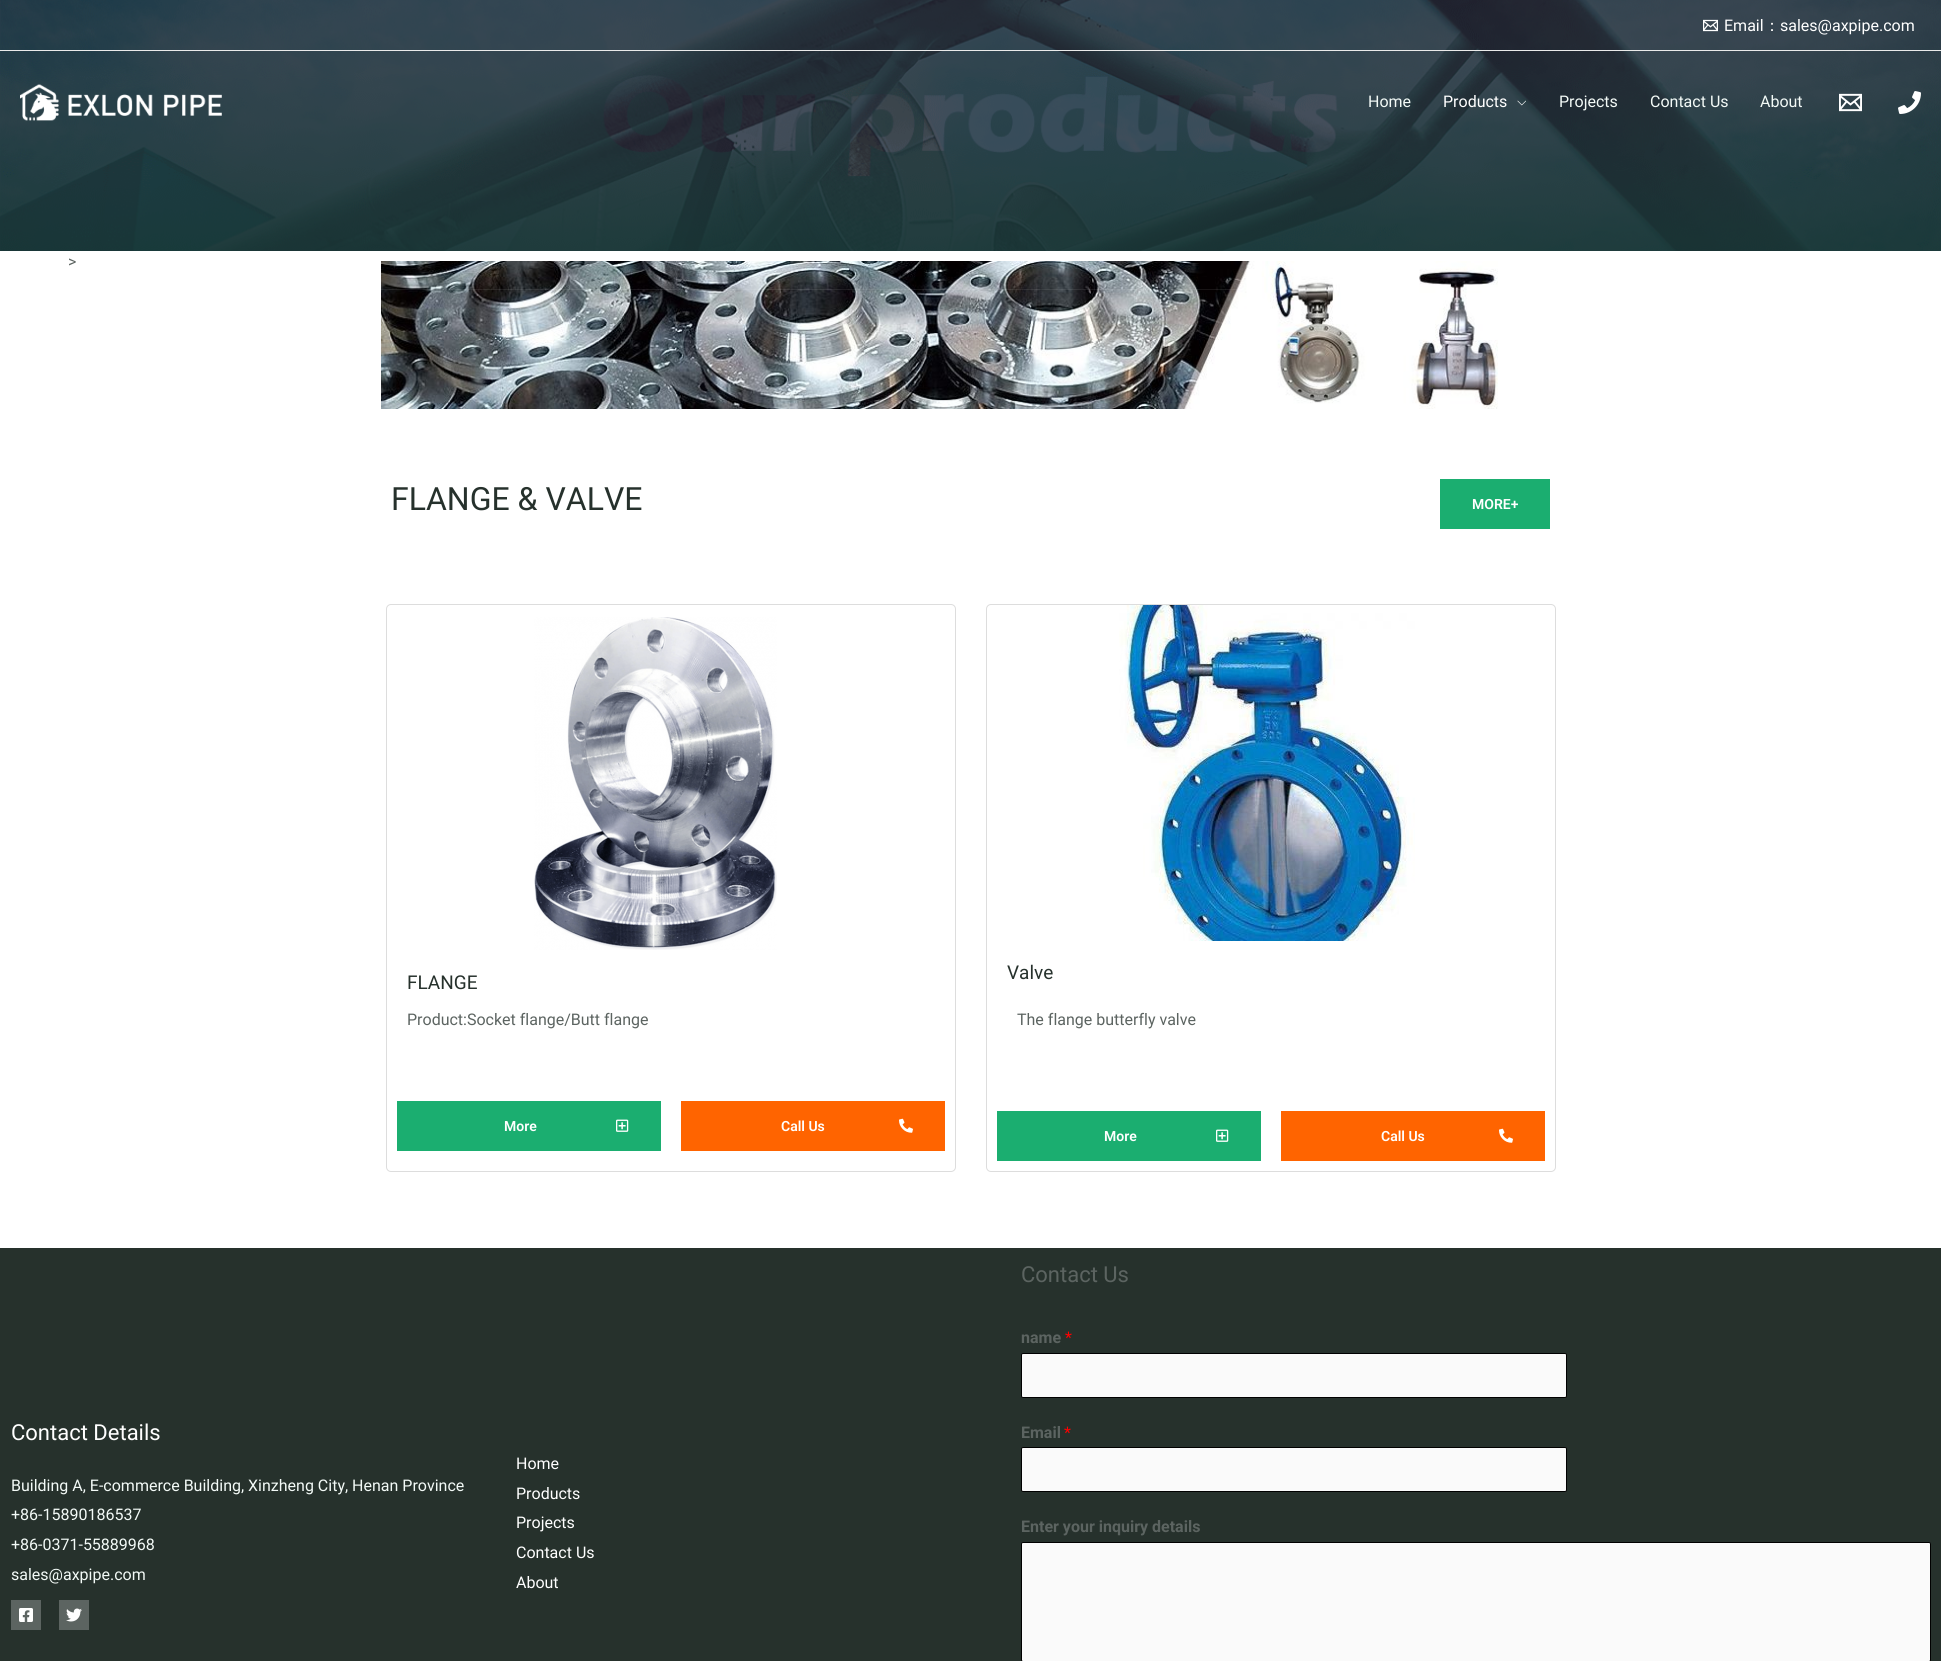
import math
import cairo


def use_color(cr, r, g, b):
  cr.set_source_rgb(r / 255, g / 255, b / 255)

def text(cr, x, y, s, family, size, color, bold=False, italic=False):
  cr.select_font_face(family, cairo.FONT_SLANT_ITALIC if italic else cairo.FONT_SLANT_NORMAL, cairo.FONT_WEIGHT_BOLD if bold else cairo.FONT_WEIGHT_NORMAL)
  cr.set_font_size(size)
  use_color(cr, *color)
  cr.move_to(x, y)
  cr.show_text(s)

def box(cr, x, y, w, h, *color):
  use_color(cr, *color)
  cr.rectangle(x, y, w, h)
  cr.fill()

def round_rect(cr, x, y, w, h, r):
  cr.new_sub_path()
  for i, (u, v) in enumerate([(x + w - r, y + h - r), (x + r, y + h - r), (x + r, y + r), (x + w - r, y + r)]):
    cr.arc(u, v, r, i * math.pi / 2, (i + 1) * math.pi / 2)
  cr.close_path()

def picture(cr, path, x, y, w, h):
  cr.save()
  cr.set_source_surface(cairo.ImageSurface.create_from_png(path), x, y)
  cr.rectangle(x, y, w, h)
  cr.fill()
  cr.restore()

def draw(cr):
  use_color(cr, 255, 255, 255)
  cr.paint()
  picture(cr, "img_06.png", 0, 0, 1941, 251)
  box(cr, 0, 50, 1941, 1, 234, 234, 234)
  picture(cr, "img_01.png", 1703, 19, 15, 13)
  picture(cr, "img_07.png", 381, 261, 1117, 148)
  cr.set_source_rgba(1, 1, 1, 0.08)
  cr.rectangle(381, 289, 1080, 1)
  cr.fill()
  picture(cr, "img_02.png", 20, 84, 202, 37)
  picture(cr, "img_03.png", 1517, 100, 9, 6)
  picture(cr, "img_04.png", 1839, 93, 23, 19)
  picture(cr, "img_05.png", 1898, 91, 23, 23)
  box(cr, 1440, 479, 110, 50, 27, 174, 112)
  round_rect(cr, 386.5, 604.5, 569, 567, 4.5)
  use_color(cr, 221, 221, 221)
  cr.set_line_width(1)
  cr.stroke()
  picture(cr, "img_08.png", 534, 617, 243, 333)
  box(cr, 397, 1101, 264, 50, 27, 174, 112)
  picture(cr, "img_09.png", 616, 1119, 13, 13)
  box(cr, 681, 1101, 264, 50, 255, 100, 0)
  picture(cr, "img_10.png", 899, 1118, 14, 15)
  round_rect(cr, 986.5, 604.5, 569, 567, 4.5)
  use_color(cr, 221, 221, 221)
  cr.stroke()
  picture(cr, "img_11.png", 1119, 605, 296, 336)
  box(cr, 997, 1111, 264, 50, 27, 174, 112)
  picture(cr, "img_09.png", 1216, 1129, 13, 13)
  box(cr, 1281, 1111, 264, 50, 255, 100, 0)
  picture(cr, "img_10.png", 1499, 1128, 14, 15)
  box(cr, 0, 1248, 1941, 413, 38, 49, 44)
  box(cr, 11, 1600, 30, 30, 92, 100, 97)
  picture(cr, "img_12.png", 19, 1608, 14, 14)
  box(cr, 59, 1600, 30, 30, 92, 100, 97)
  picture(cr, "img_13.png", 66, 1608, 16, 14)
  use_color(cr, 250, 250, 250)
  round_rect(cr, 1021.5, 1353.5, 545, 44, 1.5)
  cr.fill_preserve()
  use_color(cr, 0, 0, 0)
  cr.stroke()
  use_color(cr, 250, 250, 250)
  round_rect(cr, 1021.5, 1447.5, 545, 44, 1.5)
  cr.fill_preserve()
  use_color(cr, 0, 0, 0)
  cr.stroke()
  use_color(cr, 250, 250, 250)
  round_rect(cr, 1021.5, 1542.5, 909, 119, 1.5)
  cr.fill_preserve()
  use_color(cr, 0, 0, 0)
  cr.stroke()
  text(cr, 1724, 31, "Email", "Roboto", 16, (255, 255, 255))
  text(cr, 1764, 31, "：", "WenQuanYi Zen Hei Medium", 16, (255, 255, 255))
  text(cr, 1780, 31, "sales@axpipe.com", "Roboto", 16, (255, 255, 255))
  text(cr, 1368, 107, "Home", "Roboto", 16, (243, 250, 247))
  text(cr, 1443, 107, "Products", "Roboto", 16, (255, 255, 255))
  text(cr, 1559, 107, "Projects", "Roboto", 16, (243, 250, 247))
  text(cr, 1650, 107, "Contact Us", "Roboto", 16, (243, 250, 247))
  text(cr, 1760, 107, "About", "Roboto", 16, (243, 250, 247))
  text(cr, 68, 267, ">", "Roboto", 16, (92, 100, 97))
  text(cr, 391, 510, "FLANGE & VALVE", "Roboto", 32, (38, 49, 44))
  text(cr, 1472, 509, "MORE+", "Roboto SemiBold", 14, (255, 255, 255))
  text(cr, 407, 989, "FLANGE", "Roboto", 19, (38, 49, 44))
  text(cr, 407, 1025, "Product:Socket flange/Butt flange", "Roboto", 16, (92, 100, 97))
  text(cr, 504, 1131, "More", "Roboto SemiBold", 14, (255, 255, 255))
  text(cr, 781, 1131, "Call Us", "Roboto SemiBold", 14, (255, 255, 255))
  text(cr, 1007, 979, "Valve", "Roboto", 19, (38, 49, 44))
  text(cr, 1017, 1025, "The flange butterfly valve", "Roboto", 16, (92, 100, 97))
  text(cr, 1104, 1141, "More", "Roboto SemiBold", 14, (255, 255, 255))
  text(cr, 1381, 1141, "Call Us", "Roboto SemiBold", 14, (255, 255, 255))
  text(cr, 11, 1440, "Contact Details", "Roboto", 22, (255, 255, 255))
  text(cr, 11, 1491, "Building A, E-commerce Building, Xinzheng City, Henan Province", "Roboto", 16, (243, 250, 247))
  text(cr, 11, 1520, "+86-15890186537", "Roboto", 16, (243, 250, 247))
  text(cr, 11, 1550, "+86-0371-55889968", "Roboto", 16, (243, 250, 247))
  text(cr, 11, 1580, "sales@axpipe.com", "Roboto", 16, (243, 250, 247))
  text(cr, 516, 1469, "Home", "Roboto", 16, (255, 255, 255))
  text(cr, 516, 1499, "Products", "Roboto", 16, (255, 255, 255))
  text(cr, 516, 1528, "Projects", "Roboto", 16, (255, 255, 255))
  text(cr, 516, 1558, "Contact Us", "Roboto", 16, (255, 255, 255))
  text(cr, 516, 1588, "About", "Roboto", 16, (255, 255, 255))
  text(cr, 1021, 1282, "Contact Us", "Roboto", 22, (92, 100, 97))
  text(cr, 1021, 1343, "name", "Roboto", 16, (92, 100, 97), bold=True)
  text(cr, 1065, 1343, "*", "Roboto", 16, (255, 0, 0))
  text(cr, 1021, 1438, "Email", "Roboto", 16, (92, 100, 97), bold=True)
  text(cr, 1064, 1438, "*", "Roboto", 16, (255, 0, 0))
  text(cr, 1021, 1532, "Enter your inquiry details", "Roboto", 16, (92, 100, 97), bold=True)


surface = cairo.ImageSurface(cairo.FORMAT_RGB24, 1941, 1661)
cr = cairo.Context(surface)
options = cairo.FontOptions()
options.set_hint_metrics(cairo.HINT_METRICS_OFF)
options.set_hint_style(cairo.HINT_STYLE_NONE)
cr.set_font_options(options)
cr.set_miter_limit(4)
draw(cr)
surface.write_to_png("out.png")
